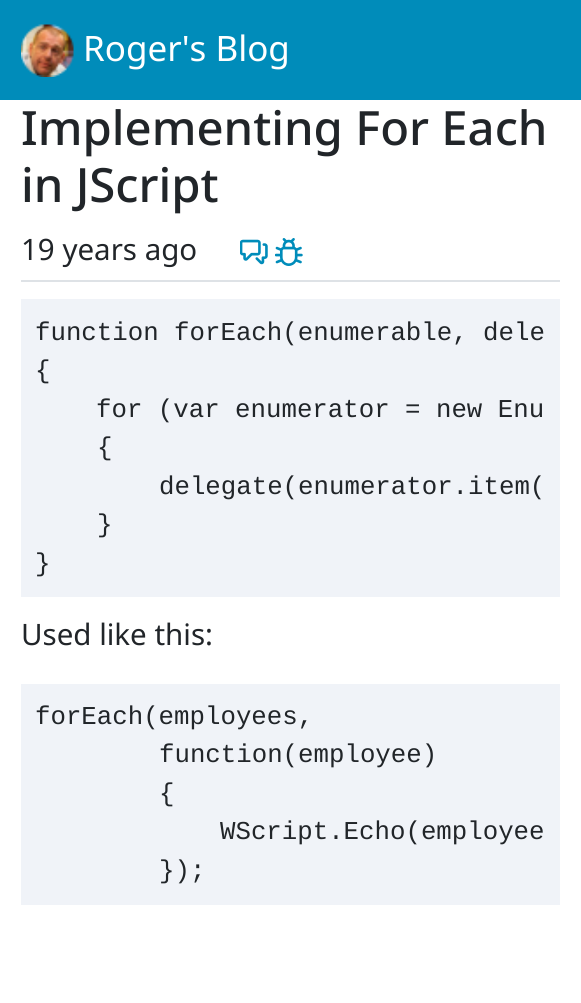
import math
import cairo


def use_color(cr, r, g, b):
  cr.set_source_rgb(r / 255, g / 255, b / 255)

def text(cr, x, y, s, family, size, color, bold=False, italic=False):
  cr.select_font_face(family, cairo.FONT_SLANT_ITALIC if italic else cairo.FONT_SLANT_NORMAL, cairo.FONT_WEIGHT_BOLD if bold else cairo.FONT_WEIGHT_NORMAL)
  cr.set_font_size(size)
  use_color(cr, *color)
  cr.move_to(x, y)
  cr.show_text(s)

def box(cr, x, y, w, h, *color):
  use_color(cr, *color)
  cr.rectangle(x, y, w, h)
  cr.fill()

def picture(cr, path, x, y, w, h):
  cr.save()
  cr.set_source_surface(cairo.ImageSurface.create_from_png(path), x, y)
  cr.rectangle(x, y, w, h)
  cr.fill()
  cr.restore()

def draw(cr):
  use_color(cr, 255, 255, 255)
  cr.paint()
  box(cr, 0, 0, 581, 100, 0, 140, 186)
  picture(cr, "img_01.png", 21, 24, 53, 53)
  box(cr, 21, 280, 539, 2, 222, 226, 230)
  picture(cr, "img_02.png", 240, 239, 28, 26)
  picture(cr, "img_03.png", 275, 238, 28, 28)
  box(cr, 21, 299, 539, 298, 240, 243, 248)
  box(cr, 21, 684, 539, 221, 240, 243, 248)
  text(cr, 83, 61, "Roger's Blog", "Noto Sans", 35, (255, 255, 255))
  text(cr, 21, 145, "Implementing For Each", "Noto Sans Medium", 47.25, (33, 37, 41))
  text(cr, 21, 202, "in JScript", "Noto Sans Medium", 47.25, (33, 37, 41))
  text(cr, 21, 260, "19 years ago", "Noto Sans", 29.5, (33, 37, 41))
  text(cr, 35, 340, "function forEach(enumerable, dele", "Liberation Mono", 25.75, (33, 37, 41))
  text(cr, 35, 378, "{", "Liberation Mono", 25.75, (33, 37, 41))
  text(cr, 96, 417, "for (var enumerator = new Enu", "Liberation Mono", 25.75, (33, 37, 41))
  text(cr, 97, 455, "{", "Liberation Mono", 25.75, (33, 37, 41))
  text(cr, 159, 494, "delegate(enumerator.item(", "Liberation Mono", 25.75, (33, 37, 41))
  text(cr, 97, 532, "}", "Liberation Mono", 25.75, (33, 37, 41))
  text(cr, 35, 571, "}", "Liberation Mono", 25.75, (33, 37, 41))
  text(cr, 21, 645, "Used like this:", "Noto Sans", 29.5, (33, 37, 41))
  text(cr, 35, 724, "forEach(employees,", "Liberation Mono", 25.75, (33, 37, 41))
  text(cr, 159, 762, "function(employee)", "Liberation Mono", 25.75, (33, 37, 41))
  text(cr, 159, 801, "{", "Liberation Mono", 25.75, (33, 37, 41))
  text(cr, 220, 839, "WScript.Echo(employee", "Liberation Mono", 25.75, (33, 37, 41))
  text(cr, 159, 878, "});", "Liberation Mono", 25.75, (33, 37, 41))


surface = cairo.ImageSurface(cairo.FORMAT_RGB24, 581, 1003)
cr = cairo.Context(surface)
options = cairo.FontOptions()
options.set_hint_metrics(cairo.HINT_METRICS_OFF)
options.set_hint_style(cairo.HINT_STYLE_NONE)
cr.set_font_options(options)
cr.set_miter_limit(4)
draw(cr)
surface.write_to_png("out.png")
